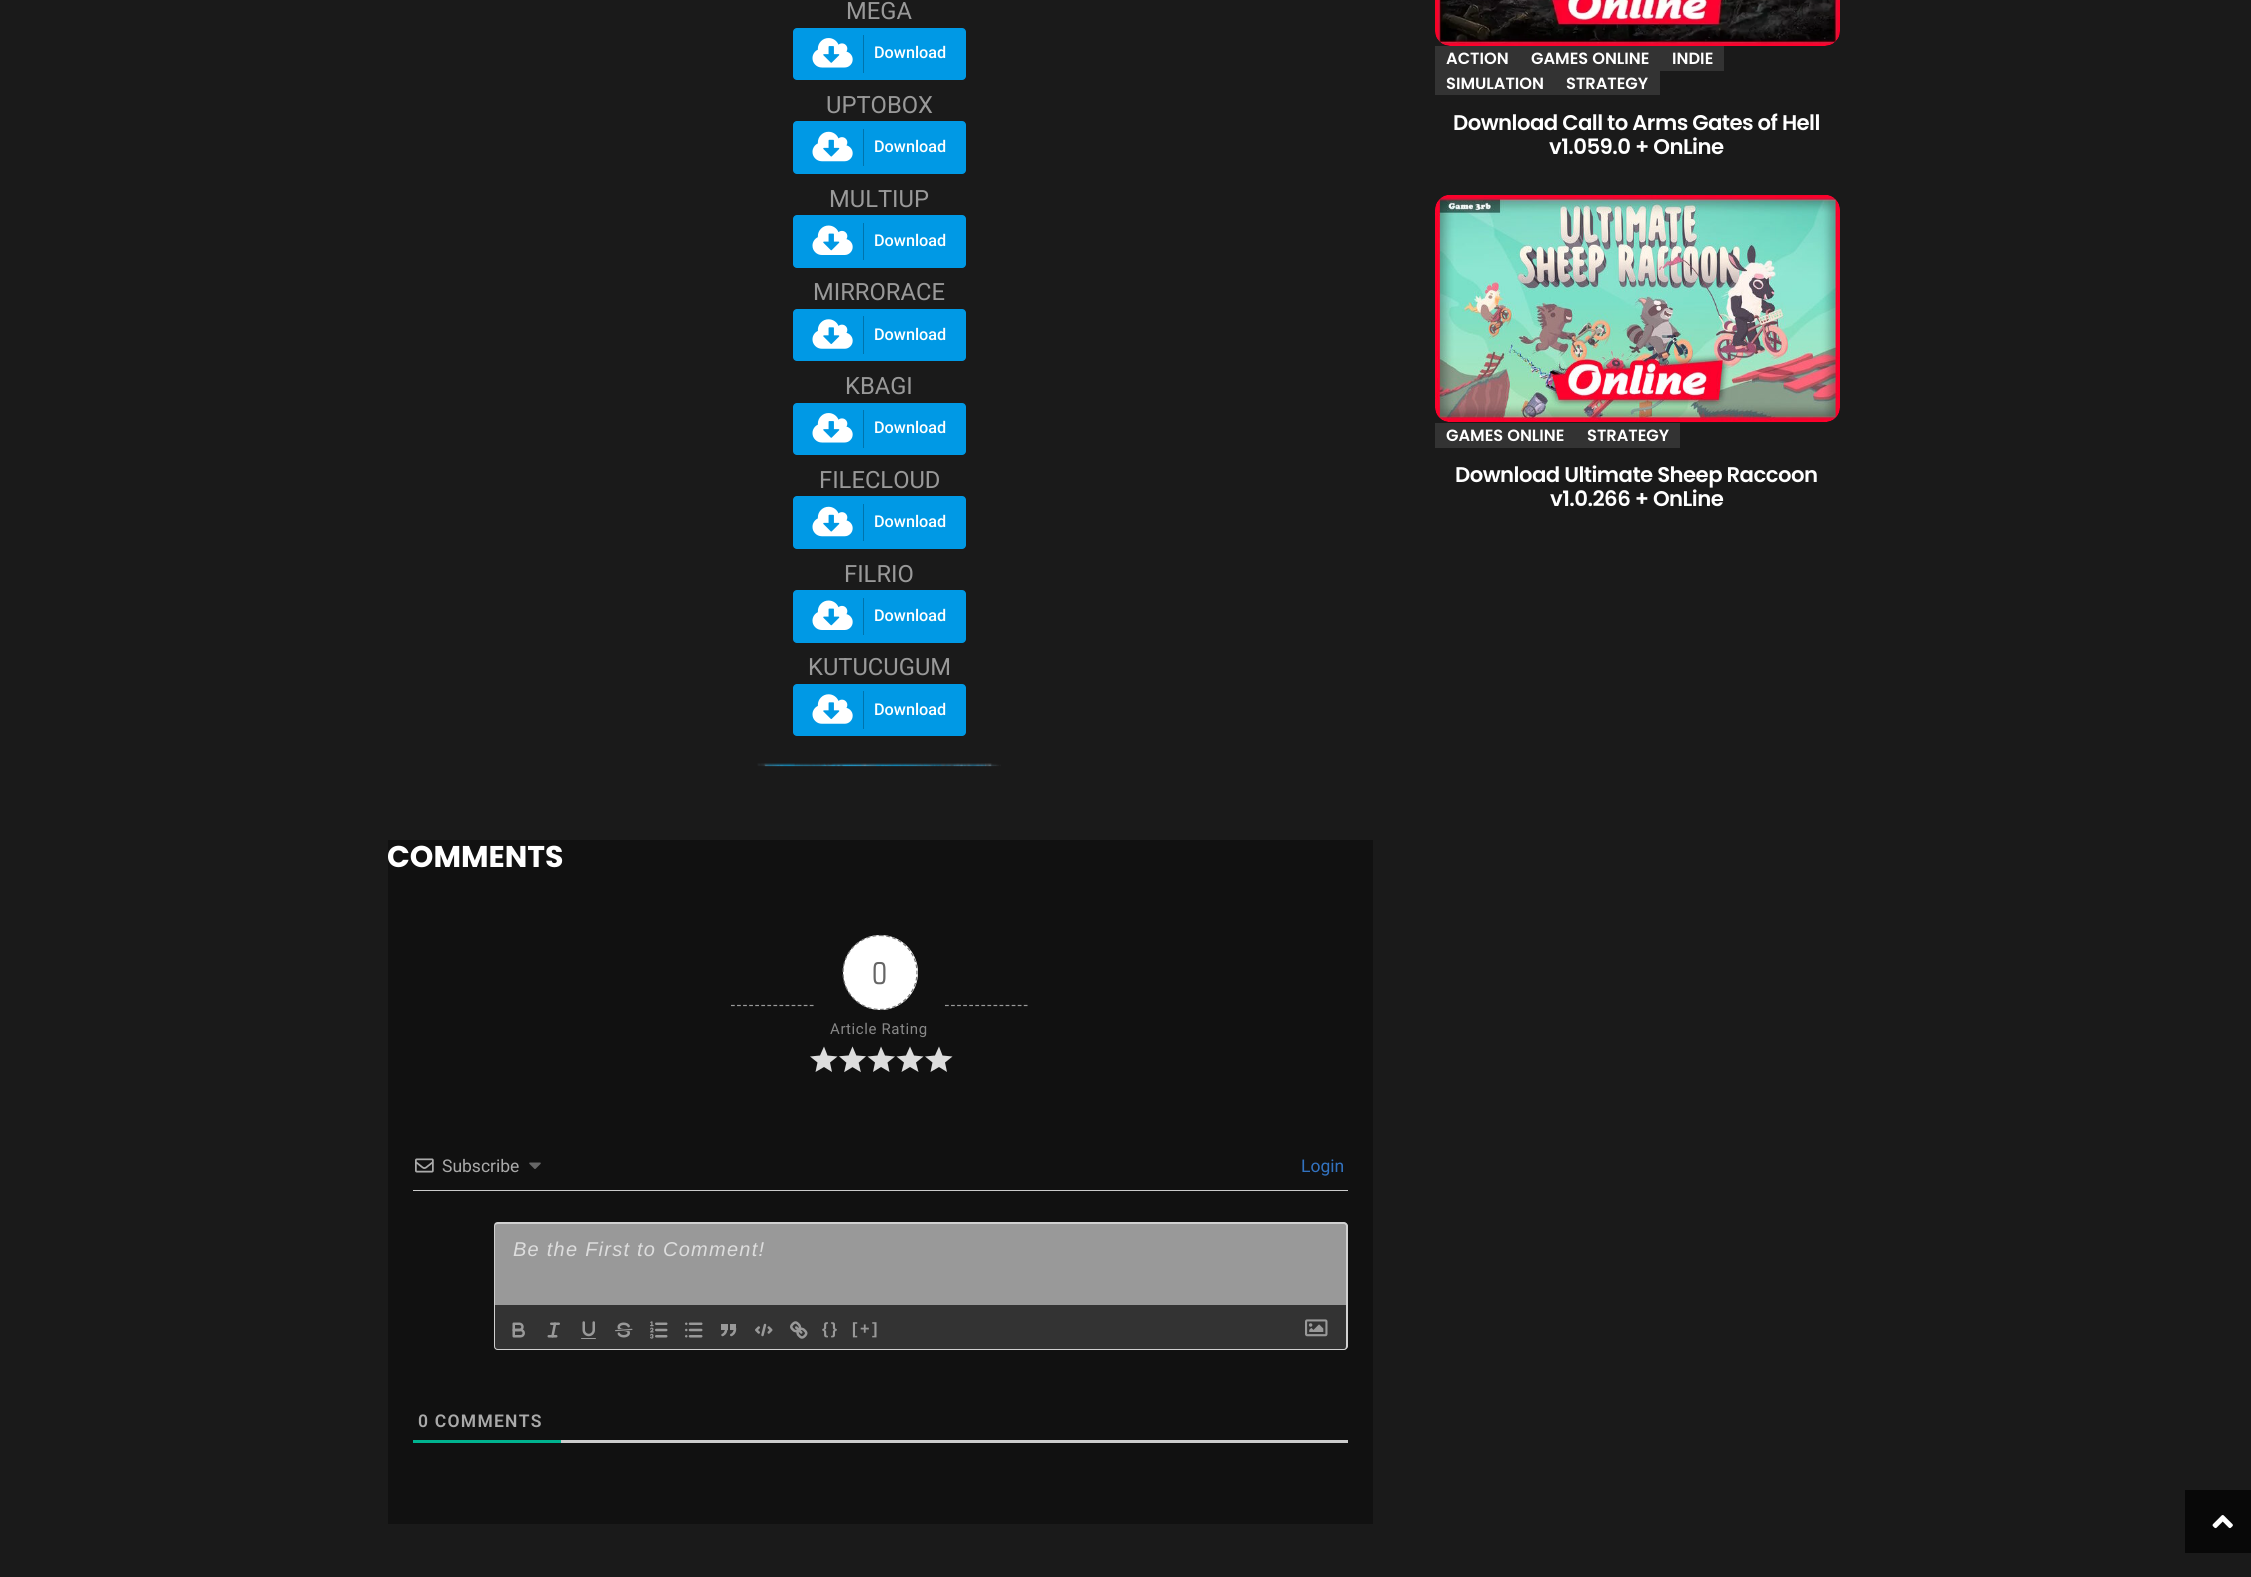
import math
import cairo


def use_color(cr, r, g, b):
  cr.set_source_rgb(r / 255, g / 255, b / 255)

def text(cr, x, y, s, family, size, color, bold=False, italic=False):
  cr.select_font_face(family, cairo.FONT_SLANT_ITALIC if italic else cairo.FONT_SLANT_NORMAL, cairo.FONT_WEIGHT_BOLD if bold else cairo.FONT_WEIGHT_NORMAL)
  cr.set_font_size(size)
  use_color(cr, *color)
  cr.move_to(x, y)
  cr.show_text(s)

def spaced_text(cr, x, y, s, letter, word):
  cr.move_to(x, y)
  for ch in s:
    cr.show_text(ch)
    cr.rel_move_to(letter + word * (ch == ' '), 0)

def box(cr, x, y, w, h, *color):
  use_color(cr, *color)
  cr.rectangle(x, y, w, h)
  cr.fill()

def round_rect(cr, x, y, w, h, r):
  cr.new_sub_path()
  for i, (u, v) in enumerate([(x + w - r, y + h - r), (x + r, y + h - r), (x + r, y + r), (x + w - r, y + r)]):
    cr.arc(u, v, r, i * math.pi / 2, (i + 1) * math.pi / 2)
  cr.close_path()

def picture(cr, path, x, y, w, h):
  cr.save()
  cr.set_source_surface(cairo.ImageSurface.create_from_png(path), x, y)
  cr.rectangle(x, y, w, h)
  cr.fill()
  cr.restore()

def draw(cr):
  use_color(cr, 26, 26, 26)
  cr.paint()
  use_color(cr, 0, 153, 229)
  round_rect(cr, 793, 28, 173, 52, 4)
  cr.fill()
  picture(cr, "img_01.png", 812, 38, 41, 30)
  box(cr, 863, 35, 1, 38, 0, 115, 172)
  use_color(cr, 0, 153, 229)
  round_rect(cr, 793, 121, 173, 53, 4)
  cr.fill()
  picture(cr, "img_02.png", 812, 131, 41, 31)
  box(cr, 863, 129, 1, 37, 0, 115, 172)
  use_color(cr, 0, 153, 229)
  round_rect(cr, 793, 215, 173, 53, 4)
  cr.fill()
  picture(cr, "img_03.png", 812, 225, 41, 30)
  box(cr, 863, 223, 1, 37, 0, 115, 172)
  use_color(cr, 0, 153, 229)
  round_rect(cr, 793, 309, 173, 52, 4)
  cr.fill()
  picture(cr, "img_04.png", 812, 319, 41, 30)
  box(cr, 863, 316, 1, 38, 0, 115, 172)
  use_color(cr, 0, 153, 229)
  round_rect(cr, 793, 403, 173, 52, 4)
  cr.fill()
  picture(cr, "img_01.png", 812, 413, 41, 30)
  box(cr, 863, 410, 1, 38, 0, 115, 172)
  use_color(cr, 0, 153, 229)
  round_rect(cr, 793, 496, 173, 53, 4)
  cr.fill()
  picture(cr, "img_02.png", 812, 506, 41, 31)
  box(cr, 863, 504, 1, 37, 0, 115, 172)
  use_color(cr, 0, 153, 229)
  round_rect(cr, 793, 590, 173, 53, 4)
  cr.fill()
  picture(cr, "img_03.png", 812, 600, 41, 30)
  box(cr, 863, 598, 1, 37, 0, 115, 172)
  use_color(cr, 0, 153, 229)
  round_rect(cr, 793, 684, 173, 52, 4)
  cr.fill()
  picture(cr, "img_04.png", 812, 694, 41, 30)
  box(cr, 863, 691, 1, 38, 0, 115, 172)
  picture(cr, "img_05.png", 757, 763, 244, 4)
  box(cr, 388, 840, 985, 684, 17, 17, 17)
  cr.new_path()
  cr.move_to(731, 1005.5)
  cr.line_to(814, 1005.5)
  use_color(cr, 153, 153, 153)
  cr.set_line_width(1.2)
  cr.set_dash([3.75, 2.31])
  cr.stroke()
  use_color(cr, 255, 255, 255)
  cr.arc(880.5, 972.5, 37.5, 0, 2 * math.pi)
  cr.fill()
  cr.new_path()
  cr.move_to(880, 935.5)
  cr.curve_to(900.5, 935.5, 917, 952, 917, 972.5)
  cr.curve_to(917, 993, 900.5, 1009.5, 880, 1009.5)
  cr.curve_to(859.5, 1009.5, 843, 993, 843, 972.5)
  cr.curve_to(843, 952, 859.5, 935.5, 880, 935.5)
  cr.close_path()
  use_color(cr, 119, 119, 119)
  cr.set_dash([3.75, 2.5])
  cr.stroke()
  use_color(cr, 221, 221, 221)
  cr.new_path()
  cr.move_to(824, 1067)
  cr.line_to(832, 1072)
  cr.line_to(830, 1062.5)
  cr.line_to(837.5, 1056.5)
  cr.line_to(827.5, 1055.5)
  cr.line_to(824, 1046.5)
  cr.line_to(820, 1055.5)
  cr.line_to(810, 1056.5)
  cr.line_to(817.5, 1062.5)
  cr.line_to(815.5, 1072)
  cr.close_path()
  cr.fill()
  picture(cr, "img_06.png", 839, 1046, 27, 27)
  cr.new_path()
  cr.move_to(881, 1067)
  cr.line_to(889.5, 1072)
  cr.line_to(887.5, 1062.5)
  cr.line_to(895, 1056.5)
  cr.line_to(885, 1055.5)
  cr.line_to(881, 1046.5)
  cr.line_to(877.5, 1055.5)
  cr.line_to(867.5, 1056.5)
  cr.line_to(875, 1062.5)
  cr.line_to(873, 1072)
  cr.close_path()
  cr.move_to(910, 1067)
  cr.line_to(918.5, 1072)
  cr.line_to(916, 1062.5)
  cr.line_to(923.5, 1056.5)
  cr.line_to(914, 1055.5)
  cr.line_to(910, 1046.5)
  cr.line_to(906, 1055.5)
  cr.line_to(896.5, 1056.5)
  cr.line_to(904, 1062.5)
  cr.line_to(901.5, 1072)
  cr.close_path()
  cr.fill()
  cr.new_path()
  cr.move_to(939, 1067)
  cr.line_to(947, 1072)
  cr.line_to(945, 1062.5)
  cr.line_to(952.5, 1056.5)
  cr.line_to(942.5, 1055.5)
  cr.line_to(939, 1046.5)
  cr.line_to(935, 1055.5)
  cr.line_to(925, 1056.5)
  cr.line_to(932.5, 1062.5)
  cr.line_to(930.5, 1072)
  cr.close_path()
  cr.fill()
  cr.new_path()
  cr.move_to(945, 1005.5)
  cr.line_to(1027.5, 1005.5)
  use_color(cr, 153, 153, 153)
  cr.set_dash([3.75, 2.31])
  cr.stroke()
  box(cr, 413, 1190, 935, 1, 204, 204, 204)
  picture(cr, "img_07.png", 415, 1158, 19, 15)
  picture(cr, "img_08.png", 529, 1162, 12, 7)
  use_color(cr, 153, 153, 153)
  cr.new_path()
  cr.move_to(498, 1223)
  cr.line_to(1344, 1223)
  cr.curve_to(1346, 1223, 1348, 1225, 1348, 1227)
  cr.line_to(1348, 1305)
  cr.line_to(494, 1305)
  cr.line_to(494, 1227)
  cr.curve_to(494, 1225, 496, 1223, 498, 1223)
  cr.close_path()
  cr.fill()
  use_color(cr, 209, 209, 209)
  cr.set_fill_rule(cairo.FILL_RULE_EVEN_ODD)
  cr.new_path()
  cr.move_to(498, 1222)
  cr.line_to(1344, 1222)
  cr.curve_to(1346, 1222, 1348, 1224, 1348, 1226)
  cr.line_to(1348, 1305)
  cr.line_to(494, 1305)
  cr.line_to(494, 1226)
  cr.curve_to(494, 1224, 495, 1222, 498, 1222)
  cr.close_path()
  cr.move_to(498, 1224)
  cr.line_to(1344, 1224)
  cr.curve_to(1345, 1224, 1346, 1225, 1346, 1226)
  cr.line_to(1346, 1305)
  cr.line_to(495, 1305)
  cr.line_to(495, 1226)
  cr.curve_to(495, 1225, 496, 1224, 498, 1224)
  cr.close_path()
  cr.fill()
  use_color(cr, 51, 51, 51)
  cr.new_path()
  cr.move_to(494, 1305)
  cr.line_to(1348, 1305)
  cr.line_to(1348, 1346)
  cr.curve_to(1348, 1348, 1346, 1350, 1344, 1350)
  cr.line_to(498, 1350)
  cr.curve_to(496, 1350, 494, 1348, 494, 1346)
  cr.close_path()
  cr.fill()
  use_color(cr, 209, 209, 209)
  cr.new_path()
  cr.move_to(494, 1305)
  cr.line_to(1348, 1305)
  cr.line_to(1348, 1346)
  cr.curve_to(1348, 1348, 1346, 1350, 1344, 1350)
  cr.line_to(498, 1350)
  cr.curve_to(495, 1350, 494, 1348, 494, 1346)
  cr.close_path()
  cr.move_to(495, 1305)
  cr.line_to(1346, 1305)
  cr.line_to(1346, 1346)
  cr.curve_to(1346, 1348, 1345, 1349, 1344, 1349)
  cr.line_to(498, 1349)
  cr.curve_to(496, 1349, 495, 1348, 495, 1346)
  cr.close_path()
  cr.fill()
  picture(cr, "img_09.png", 512, 1322, 13, 16)
  picture(cr, "img_10.png", 547, 1322, 13, 16)
  picture(cr, "img_11.png", 581, 1321, 15, 18)
  picture(cr, "img_12.png", 615, 1322, 18, 16)
  picture(cr, "img_13.png", 650, 1321, 18, 18)
  picture(cr, "img_14.png", 685, 1322, 18, 16)
  picture(cr, "img_15.png", 721, 1324, 16, 13)
  picture(cr, "img_16.png", 755, 1323, 18, 14)
  picture(cr, "img_17.png", 790, 1321, 18, 18)
  picture(cr, "img_18.png", 1305, 1319, 23, 18)
  box(cr, 561, 1440, 787, 3, 204, 204, 204)
  box(cr, 413, 1440, 148, 3, 0, 179, 143)
  picture(cr, "img_19.png", 1435, 0, 405, 46)
  box(cr, 1435, 46, 289, 25, 51, 51, 51)
  box(cr, 1435, 71, 225, 24, 51, 51, 51)
  picture(cr, "img_20.png", 1435, 195, 405, 227)
  box(cr, 1435, 423, 245, 25, 51, 51, 51)
  box(cr, 2185, 1490, 66, 63, 8, 8, 8)
  picture(cr, "img_21.png", 2212, 1515, 21, 14)
  text(cr, 846, 19, "MEGA", "Roboto", 23.75, (153, 153, 153))
  text(cr, 874, 58, "Download", "Roboto Medium", 16.25, (255, 255, 255))
  text(cr, 826, 113, "UPTOBOX", "Roboto", 23.75, (153, 153, 153))
  text(cr, 874, 152, "Download", "Roboto Medium", 16.25, (255, 255, 255))
  text(cr, 829, 207, "MULTIUP", "Roboto", 23.75, (153, 153, 153))
  text(cr, 874, 246, "Download", "Roboto Medium", 16.25, (255, 255, 255))
  text(cr, 813, 300, "MIRRORACE", "Roboto", 23.75, (153, 153, 153))
  text(cr, 874, 340, "Download", "Roboto Medium", 16.25, (255, 255, 255))
  text(cr, 845, 394, "KBAGI", "Roboto", 23.75, (153, 153, 153))
  text(cr, 874, 433, "Download", "Roboto Medium", 16.25, (255, 255, 255))
  text(cr, 819, 488, "FILECLOUD", "Roboto", 23.75, (153, 153, 153))
  text(cr, 874, 527, "Download", "Roboto Medium", 16.25, (255, 255, 255))
  text(cr, 844, 582, "FILRIO", "Roboto", 23.75, (153, 153, 153))
  text(cr, 874, 621, "Download", "Roboto Medium", 16.25, (255, 255, 255))
  text(cr, 808, 675, "KUTUCUGUM", "Roboto", 23.75, (153, 153, 153))
  text(cr, 874, 715, "Download", "Roboto Medium", 16.25, (255, 255, 255))
  cr.save()
  cr.set_fill_rule(cairo.FILL_RULE_WINDING)
  cr.rectangle(388, 0, 1477, 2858)
  cr.clip()
  text(cr, 387, 867, "COMMENTS", "Poppins", 30, (255, 255, 255), bold=True)
  cr.restore()
  text(cr, 872, 984, "0", "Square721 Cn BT", 30, (102, 102, 102))
  cr.select_font_face("Roboto")
  cr.set_font_size(15)
  use_color(cr, 136, 136, 136)
  spaced_text(cr, 830, 1034, "Article Rating", 0.6, 0)
  text(cr, 442, 1172, "Subscribe", "Roboto", 17.5, (170, 170, 170))
  text(cr, 1301, 1172, "Login", "Roboto", 17.5, (50, 114, 191))
  cr.select_font_face("Liberation Sans", cairo.FONT_SLANT_ITALIC)
  cr.set_font_size(20)
  use_color(cr, 221, 221, 221)
  spaced_text(cr, 513, 1256, "Be the First to Comment!", 1.25, 0)
  cr.select_font_face("Liberation Sans", cairo.FONT_SLANT_NORMAL, cairo.FONT_WEIGHT_BOLD)
  cr.set_font_size(16.25)
  use_color(cr, 153, 153, 153)
  spaced_text(cr, 822, 1334, "{}", 2.5, 0)
  spaced_text(cr, 852, 1334, "[+]", 2.5, 0)
  cr.select_font_face("Roboto SemiBold")
  cr.set_font_size(17.5)
  use_color(cr, 170, 170, 170)
  spaced_text(cr, 418, 1427, "0 COMMENTS", 1.25, 0)
  text(cr, 1446, 64, "ACTION", "Poppins SemiBold", 16.25, (255, 255, 255))
  text(cr, 1531, 64, "GAMES ONLINE", "Poppins SemiBold", 16.25, (255, 255, 255))
  text(cr, 1672, 64, "INDIE", "Poppins SemiBold", 16.25, (255, 255, 255))
  text(cr, 1446, 89, "SIMULATION", "Poppins SemiBold", 16.25, (255, 255, 255))
  text(cr, 1566, 89, "STRATEGY", "Poppins SemiBold", 16.25, (255, 255, 255))
  cr.set_font_size(21.25)
  spaced_text(cr, 1453, 130, "Download Call to Arms Gates of Hell", -0.55, 0)
  spaced_text(cr, 1549, 154, "v1.059.0 + OnLine", -0.55, 0)
  text(cr, 1446, 441, "GAMES ONLINE", "Poppins SemiBold", 16.25, (255, 255, 255))
  text(cr, 1587, 441, "STRATEGY", "Poppins SemiBold", 16.25, (255, 255, 255))
  cr.set_font_size(21.25)
  spaced_text(cr, 1455, 482, "Download Ultimate Sheep Raccoon", -0.55, 0)
  spaced_text(cr, 1550, 506, "v1.0.266 + OnLine", -0.55, 0)


surface = cairo.ImageSurface(cairo.FORMAT_RGB24, 2251, 1577)
cr = cairo.Context(surface)
options = cairo.FontOptions()
options.set_hint_metrics(cairo.HINT_METRICS_OFF)
options.set_hint_style(cairo.HINT_STYLE_NONE)
cr.set_font_options(options)
cr.set_miter_limit(4)
draw(cr)
surface.write_to_png("out.png")
